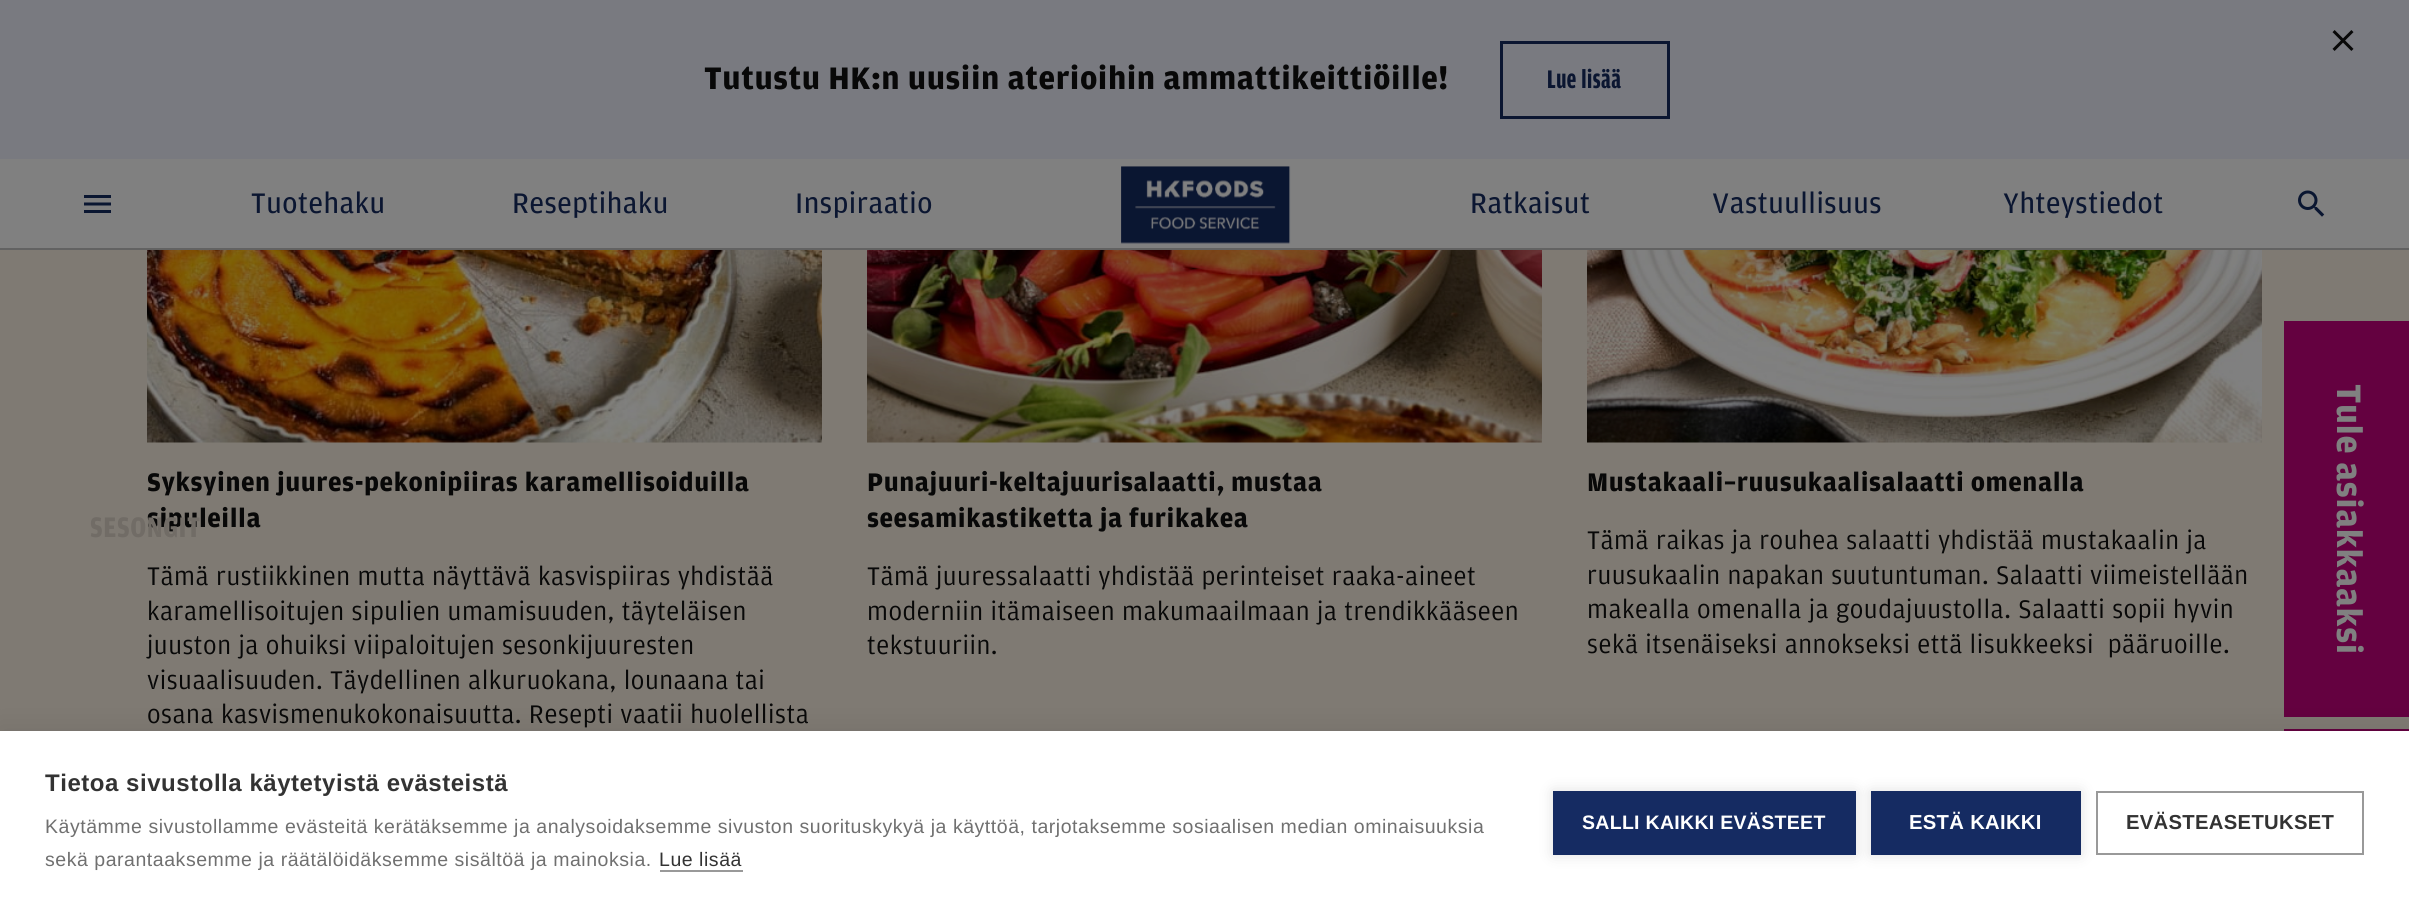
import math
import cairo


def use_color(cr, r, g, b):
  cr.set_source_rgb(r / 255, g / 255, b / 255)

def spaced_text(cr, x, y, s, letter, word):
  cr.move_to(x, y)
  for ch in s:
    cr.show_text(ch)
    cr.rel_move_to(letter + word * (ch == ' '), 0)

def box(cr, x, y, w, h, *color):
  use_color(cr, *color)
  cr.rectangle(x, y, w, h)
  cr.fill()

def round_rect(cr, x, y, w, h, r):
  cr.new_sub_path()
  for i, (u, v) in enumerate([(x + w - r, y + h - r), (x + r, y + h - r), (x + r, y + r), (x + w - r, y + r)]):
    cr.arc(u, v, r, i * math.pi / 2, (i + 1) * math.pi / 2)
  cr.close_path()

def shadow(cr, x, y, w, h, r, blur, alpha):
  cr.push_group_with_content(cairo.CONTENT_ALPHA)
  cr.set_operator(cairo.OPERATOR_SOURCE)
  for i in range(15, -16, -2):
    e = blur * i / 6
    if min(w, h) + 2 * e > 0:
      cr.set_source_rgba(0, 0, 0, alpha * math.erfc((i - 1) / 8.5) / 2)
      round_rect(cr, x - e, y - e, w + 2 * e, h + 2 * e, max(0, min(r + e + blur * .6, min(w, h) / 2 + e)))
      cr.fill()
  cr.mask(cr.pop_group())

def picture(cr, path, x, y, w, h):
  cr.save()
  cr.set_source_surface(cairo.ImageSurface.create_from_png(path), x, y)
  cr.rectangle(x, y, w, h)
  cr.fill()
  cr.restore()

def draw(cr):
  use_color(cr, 127, 122, 115)
  cr.paint()
  box(cr, 0, 0, 2409, 159, 121, 122, 128)
  picture(cr, "img_01.png", 2332, 30, 22, 21)
  cr.rectangle(1501.5, 42.5, 167, 75)
  use_color(cr, 11, 22, 49)
  cr.set_line_width(3)
  cr.stroke()
  box(cr, 0, 159, 2409, 89, 128, 128, 128)
  box(cr, 0, 248, 2409, 2, 98, 98, 98)
  picture(cr, "img_02.png", 84, 195, 27, 18)
  picture(cr, "img_03.png", 1121, 166, 170, 78)
  picture(cr, "img_04.png", 2298, 190, 27, 27)
  picture(cr, "img_05.png", 147, 250, 675, 193)
  picture(cr, "img_06.png", 867, 250, 675, 193)
  picture(cr, "img_07.png", 1587, 250, 675, 193)
  box(cr, 2284, 321, 125, 396, 100, 1, 64)
  box(cr, 2284, 729, 125, 2, 100, 1, 64)
  use_color(cr, 0, 0, 0)
  shadow(cr, 0, 731, 2409, 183, 0, 15, 0.1)
  box(cr, 0, 731, 2409, 182, 255, 255, 255)
  box(cr, 660, 870, 83, 2, 153, 153, 153)
  use_color(cr, 0, 0, 0)
  shadow(cr, 1553, 791, 303, 64, 0, 7.5, 0.12)
  box(cr, 1553, 791, 303, 64, 21, 43, 98)
  use_color(cr, 0, 0, 0)
  shadow(cr, 1871, 791, 210, 64, 0, 7.5, 0.12)
  box(cr, 1871, 791, 210, 64, 21, 43, 98)
  cr.rectangle(2097, 792, 266, 62)
  use_color(cr, 153, 153, 153)
  cr.set_line_width(2)
  cr.stroke()
  cr.select_font_face("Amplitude", cairo.FONT_SLANT_NORMAL, cairo.FONT_WEIGHT_BOLD)
  cr.set_font_size(33)
  use_color(cr, 8, 8, 8)
  spaced_text(cr, 704, 89, "Tutustu HK:n uusiin aterioihin ammattikeittiöille!", 0.54, 0)
  cr.select_font_face("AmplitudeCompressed", cairo.FONT_SLANT_NORMAL, cairo.FONT_WEIGHT_BOLD)
  cr.set_font_size(27)
  use_color(cr, 11, 22, 49)
  spaced_text(cr, 1547, 88, "Lue lisää", 0.54, 0)
  cr.select_font_face("Amplitude")
  cr.set_font_size(30)
  spaced_text(cr, 251, 213, "Tuotehaku", 0.54, 0)
  spaced_text(cr, 512, 213, "Reseptihaku", 0.54, 0)
  spaced_text(cr, 795, 213, "Inspiraatio", 0.54, 0)
  spaced_text(cr, 1470, 213, "Ratkaisut", 0.54, 0)
  spaced_text(cr, 1712, 213, "Vastuullisuus", 0.54, 0)
  spaced_text(cr, 2003, 213, "Yhteystiedot", 0.54, 0)
  cr.select_font_face("Amplitude", cairo.FONT_SLANT_NORMAL, cairo.FONT_WEIGHT_BOLD)
  cr.set_font_size(27)
  use_color(cr, 8, 8, 8)
  spaced_text(cr, 147, 491, "Syksyinen juures-pekonipiiras karamellisoiduilla", 0.54, 0)
  spaced_text(cr, 147, 527, "sipuleilla", 0.54, 0)
  cr.select_font_face("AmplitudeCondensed", cairo.FONT_SLANT_NORMAL, cairo.FONT_WEIGHT_BOLD)
  cr.set_font_size(30)
  use_color(cr, 113, 108, 102)
  spaced_text(cr, 90, 537, "SESONGIT", 0.54, 0)
  cr.select_font_face("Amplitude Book")
  cr.set_font_size(27)
  use_color(cr, 8, 8, 8)
  spaced_text(cr, 147, 585, "Tämä rustiikkinen mutta näyttävä kasvispiiras yhdistää", 0.54, 0)
  spaced_text(cr, 147, 620, "karamellisoitujen sipulien umamisuuden, täyteläisen", 0.54, 0)
  spaced_text(cr, 147, 654, "juuston ja ohuiksi viipaloitujen sesonkijuuresten", 0.54, 0)
  spaced_text(cr, 147, 689, "visuaalisuuden. Täydellinen alkuruokana, lounaana tai", 0.54, 0)
  spaced_text(cr, 147, 723, "osana kasvismenukokonaisuutta. Resepti vaatii huolellista", 0.54, 0)
  cr.select_font_face("Amplitude", cairo.FONT_SLANT_NORMAL, cairo.FONT_WEIGHT_BOLD)
  spaced_text(cr, 867, 491, "Punajuuri-keltajuurisalaatti, mustaa", 0.54, 0)
  spaced_text(cr, 867, 527, "seesamikastiketta ja furikakea", 0.54, 0)
  cr.select_font_face("Amplitude Book")
  spaced_text(cr, 867, 585, "Tämä juuressalaatti yhdistää perinteiset raaka-aineet", 0.54, 0)
  spaced_text(cr, 867, 620, "moderniin itämaiseen makumaailmaan ja trendikkääseen", 0.54, 0)
  spaced_text(cr, 867, 654, "tekstuuriin.", 0.54, 0)
  cr.select_font_face("Amplitude", cairo.FONT_SLANT_NORMAL, cairo.FONT_WEIGHT_BOLD)
  spaced_text(cr, 1587, 491, "Mustakaali–ruusukaalisalaatti omenalla", 0.54, 0)
  cr.select_font_face("Amplitude Book")
  spaced_text(cr, 1587, 549, "Tämä raikas ja rouhea salaatti yhdistää mustakaalin ja", 0.54, 0)
  spaced_text(cr, 1587, 584, "ruusukaalin napakan suutuntuman. Salaatti viimeistellään", 0.54, 0)
  spaced_text(cr, 1587, 618, "makealla omenalla ja goudajuustolla. Salaatti sopii hyvin", 0.54, 0)
  spaced_text(cr, 1587, 653, "sekä itsenäiseksi annokseksi että lisukkeeksi  pääruoille.", 0.54, 0)
  cr.select_font_face("Amplitude", cairo.FONT_SLANT_NORMAL, cairo.FONT_WEIGHT_BOLD)
  cr.set_font_size(36)
  use_color(cr, 128, 128, 128)
  cr.save()
  cr.translate(2337, 384)
  cr.rotate(90 * math.pi / 180)
  spaced_text(cr, 0, 0, "Tule asiakkaaksi", 0.54, 0)
  cr.restore()
  cr.select_font_face("Liberation Sans", cairo.FONT_SLANT_NORMAL, cairo.FONT_WEIGHT_BOLD)
  cr.set_font_size(24)
  use_color(cr, 51, 51, 51)
  spaced_text(cr, 45, 791, "Tietoa sivustolla käytetyistä evästeistä", 0.54, 0)
  cr.select_font_face("Liberation Sans")
  cr.set_font_size(19.5)
  use_color(cr, 112, 112, 112)
  spaced_text(cr, 45, 833, "Käytämme sivustollamme evästeitä kerätäksemme ja analysoidaksemme sivuston suorituskykyä ja käyttöä, tarjotaksemme sosiaalisen median ominaisuuksia", 0.54, 0)
  spaced_text(cr, 45, 866, "sekä parantaaksemme ja räätälöidäksemme sisältöä ja mainoksia.", 0.54, 0)
  use_color(cr, 51, 51, 51)
  spaced_text(cr, 659, 866, "Lue lisää", 0.54, 0)
  cr.select_font_face("Liberation Sans", cairo.FONT_SLANT_NORMAL, cairo.FONT_WEIGHT_BOLD)
  use_color(cr, 255, 255, 255)
  spaced_text(cr, 1582, 829, "SALLI KAIKKI EVÄSTEET", 0.3, 0)
  cr.set_font_size(20.25)
  spaced_text(cr, 1909, 829, "ESTÄ KAIKKI", 0.3, 0)
  use_color(cr, 51, 51, 51)
  spaced_text(cr, 2126, 829, "EVÄSTEASETUKSET", 0.3, 0)


surface = cairo.ImageSurface(cairo.FORMAT_RGB24, 2409, 913)
cr = cairo.Context(surface)
options = cairo.FontOptions()
options.set_hint_metrics(cairo.HINT_METRICS_OFF)
options.set_hint_style(cairo.HINT_STYLE_NONE)
cr.set_font_options(options)
cr.set_miter_limit(4)
draw(cr)
surface.write_to_png("out.png")
